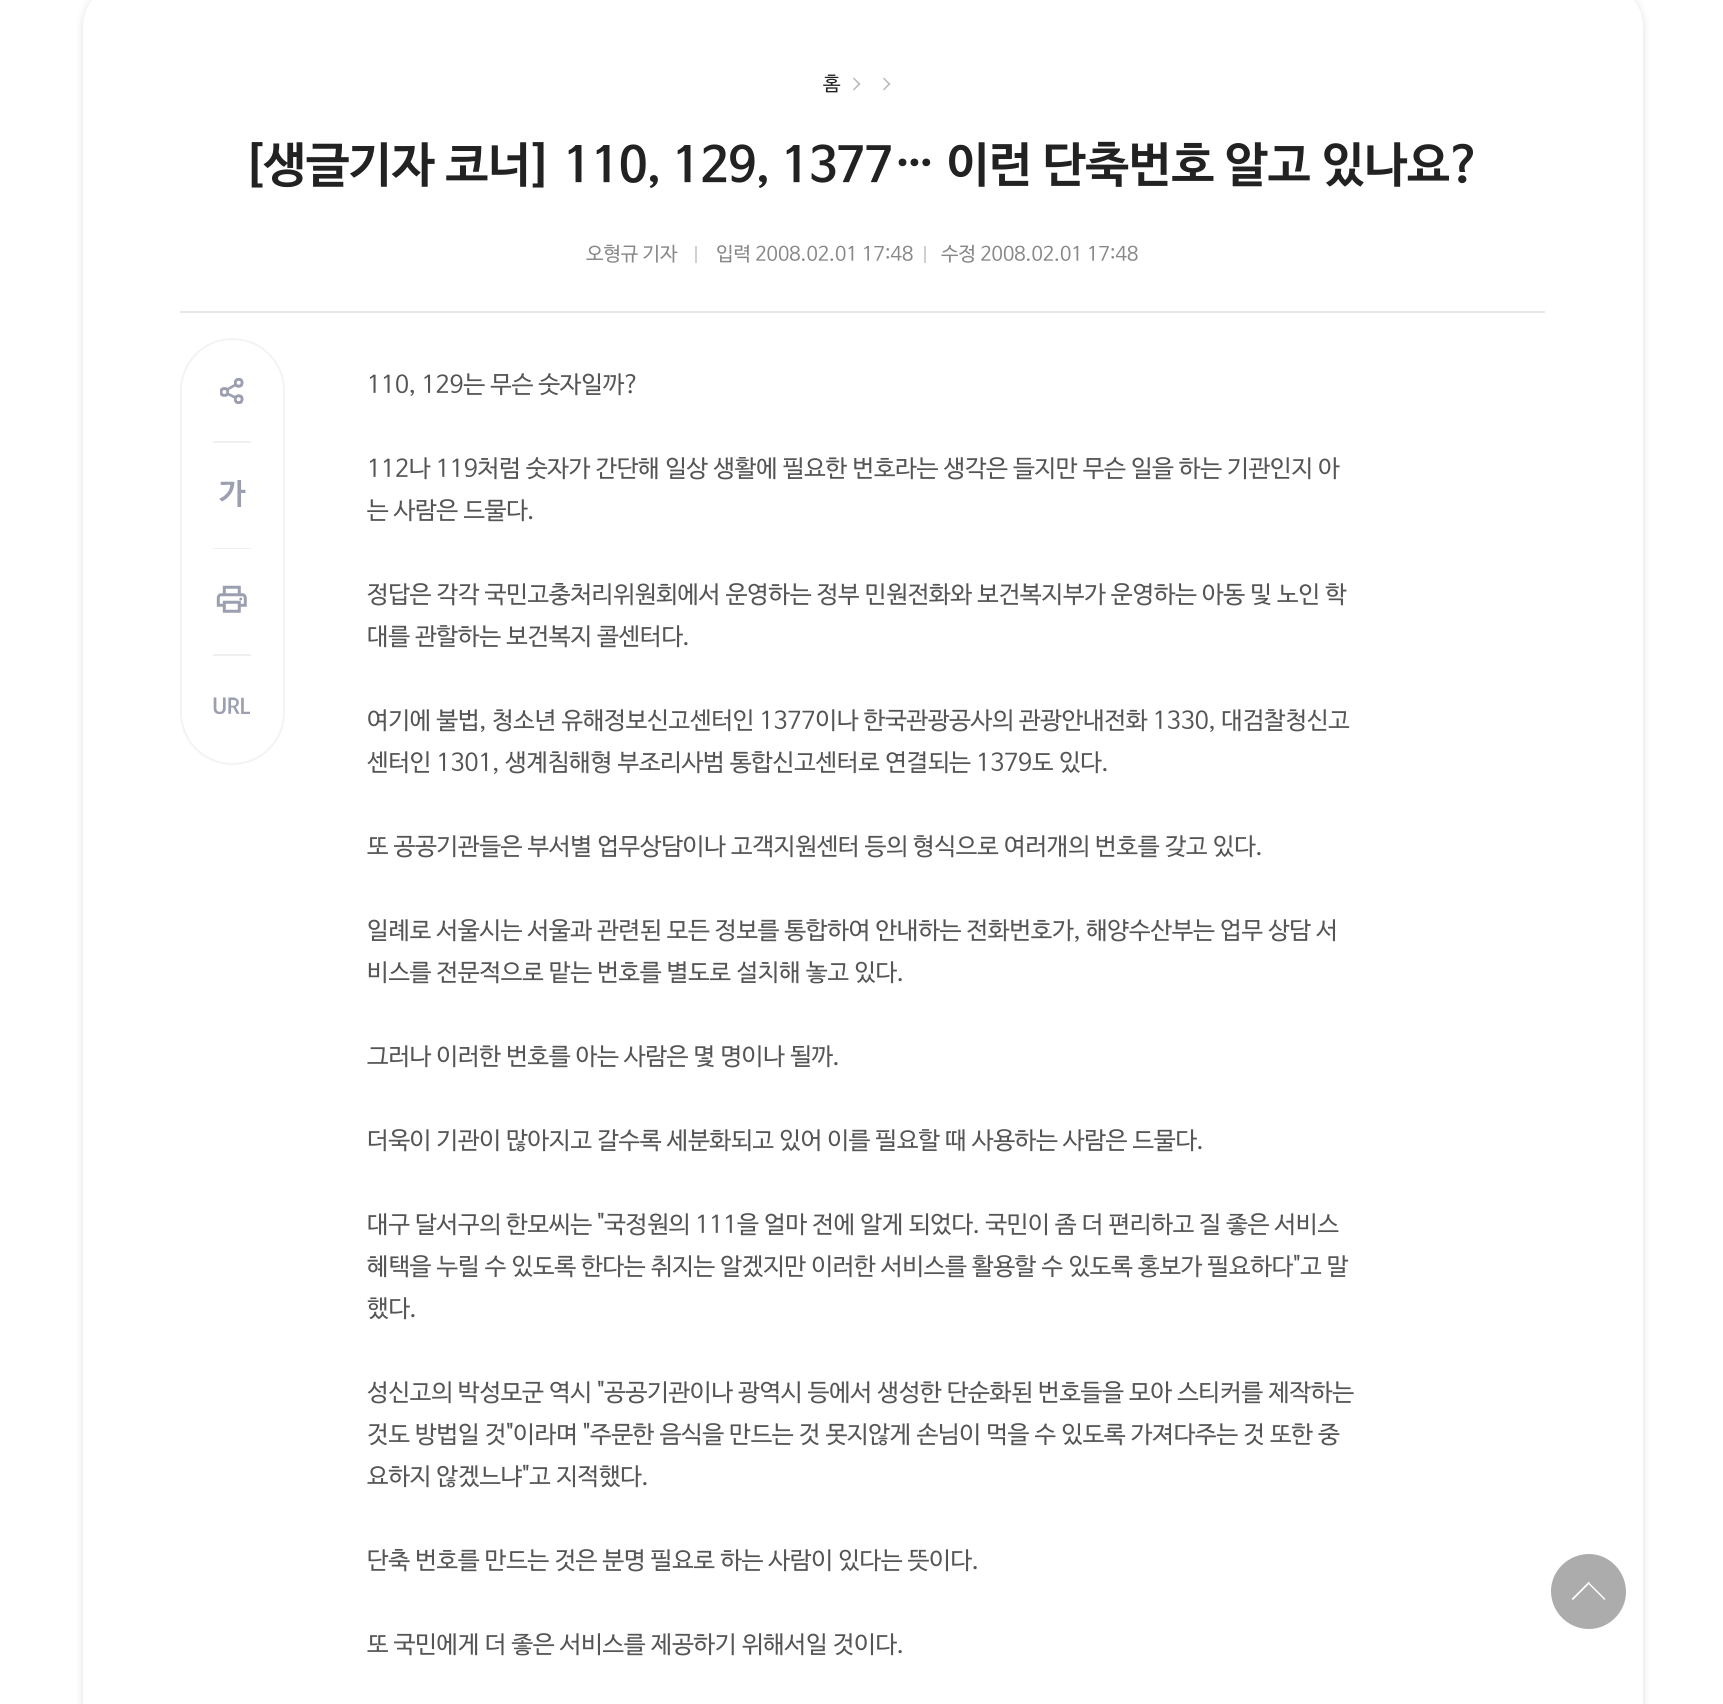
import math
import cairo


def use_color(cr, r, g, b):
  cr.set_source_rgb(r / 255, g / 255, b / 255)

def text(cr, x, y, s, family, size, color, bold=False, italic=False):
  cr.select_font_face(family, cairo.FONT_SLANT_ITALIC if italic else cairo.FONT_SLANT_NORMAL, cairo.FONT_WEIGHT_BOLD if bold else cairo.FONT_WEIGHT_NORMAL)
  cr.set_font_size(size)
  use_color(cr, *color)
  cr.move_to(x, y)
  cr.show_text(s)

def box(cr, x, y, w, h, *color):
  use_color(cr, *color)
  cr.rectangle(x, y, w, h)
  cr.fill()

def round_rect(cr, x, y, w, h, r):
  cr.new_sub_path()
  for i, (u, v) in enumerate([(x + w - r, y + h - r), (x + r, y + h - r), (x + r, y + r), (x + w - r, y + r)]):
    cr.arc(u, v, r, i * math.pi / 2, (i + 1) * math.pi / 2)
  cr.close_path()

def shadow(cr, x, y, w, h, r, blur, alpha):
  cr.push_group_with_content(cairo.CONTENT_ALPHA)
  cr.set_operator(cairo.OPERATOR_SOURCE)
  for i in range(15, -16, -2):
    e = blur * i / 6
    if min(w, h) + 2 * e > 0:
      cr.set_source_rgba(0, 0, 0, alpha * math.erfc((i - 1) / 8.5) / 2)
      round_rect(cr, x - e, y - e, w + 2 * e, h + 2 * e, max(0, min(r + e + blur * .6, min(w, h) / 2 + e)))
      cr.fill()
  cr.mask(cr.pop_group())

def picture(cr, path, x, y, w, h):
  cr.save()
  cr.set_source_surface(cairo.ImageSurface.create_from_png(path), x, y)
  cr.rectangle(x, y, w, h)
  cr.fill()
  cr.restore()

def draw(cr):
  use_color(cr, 255, 255, 255)
  cr.paint()
  use_color(cr, 0, 0, 0)
  shadow(cr, 83, -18, 1560, 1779, 45, 4, 0.13)
  use_color(cr, 255, 255, 255)
  round_rect(cr, 83, -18, 1560, 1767, 45)
  cr.fill()
  use_color(cr, 187, 187, 187)
  cr.new_path()
  cr.move_to(854, 77.5)
  cr.line_to(860.5, 84)
  cr.line_to(859, 85)
  cr.line_to(853, 78.5)
  cr.close_path()
  cr.fill()
  cr.new_path()
  cr.move_to(859, 83)
  cr.line_to(860.5, 84)
  cr.line_to(854, 90.5)
  cr.line_to(853, 89.5)
  cr.close_path()
  cr.move_to(884, 77.5)
  cr.line_to(890.5, 84)
  cr.line_to(889, 85)
  cr.line_to(883, 78.5)
  cr.close_path()
  cr.fill()
  cr.new_path()
  cr.move_to(889, 83)
  cr.line_to(890.5, 84)
  cr.line_to(884, 90.5)
  cr.line_to(883, 89.5)
  cr.close_path()
  cr.fill()
  box(cr, 180, 311, 1365, 2, 232, 232, 232)
  box(cr, 695, 246, 2, 17, 207, 208, 214)
  box(cr, 924, 246, 2, 17, 207, 208, 214)
  round_rect(cr, 181, 339, 103, 425, 51.5)
  use_color(cr, 243, 243, 243)
  cr.stroke()
  box(cr, 213, 441, 38, 2, 240, 240, 240)
  picture(cr, "img_01.png", 220, 378, 24, 26)
  box(cr, 213, 548, 38, 1, 240, 240, 240)
  picture(cr, "img_02.png", 219, 480, 27, 27)
  box(cr, 213, 654, 38, 2, 240, 240, 240)
  picture(cr, "img_03.png", 216, 585, 31, 28)
  picture(cr, "img_04.png", 213, 697, 37, 17)
  use_color(cr, 172, 172, 172)
  cr.new_path()
  cr.move_to(1589, 1554)
  cr.curve_to(1609, 1554, 1626, 1571, 1626, 1592)
  cr.curve_to(1626, 1612, 1609, 1629, 1589, 1629)
  cr.curve_to(1568, 1629, 1551, 1612, 1551, 1591)
  cr.curve_to(1551, 1571, 1568, 1554, 1589, 1554)
  cr.close_path()
  cr.fill()
  use_color(cr, 255, 255, 255)
  cr.new_path()
  cr.move_to(1588.5, 1582)
  cr.line_to(1605.5, 1599)
  cr.line_to(1604.5, 1600)
  cr.line_to(1587.5, 1583)
  cr.close_path()
  cr.fill()
  cr.new_path()
  cr.move_to(1588.5, 1582)
  cr.line_to(1590, 1583)
  cr.line_to(1573, 1600)
  cr.line_to(1571.5, 1599)
  cr.close_path()
  cr.fill()
  cr.save()
  cr.translate(823, 90)
  cr.rotate(0.1 * math.pi / 180)
  text(cr, 0, 0, "홈", "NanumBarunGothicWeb", 19.5, (34, 34, 34))
  cr.restore()
  text(cr, 242, 180, "[생글기자 코너] 110, 129, 1377… 이런 단축번호 알고 있나요?", "NanumBarunGothicWeb", 48, (34, 34, 34), bold=True)
  text(cr, 586, 260, "오형규 기자", "NanumBarunGothicWeb", 19.5, (136, 136, 136))
  text(cr, 716, 260, "입력 2008.02.01 17:48", "NanumBarunGothicWeb", 19.5, (136, 136, 136))
  text(cr, 941, 260, "수정 2008.02.01 17:48", "NanumBarunGothicWeb", 19.5, (136, 136, 136))
  text(cr, 367, 392, "110, 129는 무슨 숫자일까?", "NanumBarunGothicWeb", 24, (85, 85, 85))
  text(cr, 367, 476, "112나 119처럼 숫자가 간단해 일상 생활에 필요한 번호라는 생각은 들지만 무슨 일을 하는 기관인지 아", "NanumBarunGothicWeb", 24, (85, 85, 85))
  text(cr, 367, 518, "는 사람은 드물다.", "NanumBarunGothicWeb", 24, (85, 85, 85))
  text(cr, 367, 602, "정답은 각각 국민고충처리위원회에서 운영하는 정부 민원전화와 보건복지부가 운영하는 아동 및 노인 학", "NanumBarunGothicWeb", 24, (85, 85, 85))
  text(cr, 367, 644, "대를 관할하는 보건복지 콜센터다.", "NanumBarunGothicWeb", 24, (85, 85, 85))
  text(cr, 367, 728, "여기에 불법, 청소년 유해정보신고센터인 1377이나 한국관광공사의 관광안내전화 1330, 대검찰청신고", "NanumBarunGothicWeb", 24, (85, 85, 85))
  text(cr, 367, 770, "센터인 1301, 생계침해형 부조리사범 통합신고센터로 연결되는 1379도 있다.", "NanumBarunGothicWeb", 24, (85, 85, 85))
  text(cr, 367, 854, "또 공공기관들은 부서별 업무상담이나 고객지원센터 등의 형식으로 여러개의 번호를 갖고 있다.", "NanumBarunGothicWeb", 24, (85, 85, 85))
  text(cr, 367, 938, "일례로 서울시는 서울과 관련된 모든 정보를 통합하여 안내하는 전화번호가, 해양수산부는 업무 상담 서", "NanumBarunGothicWeb", 24, (85, 85, 85))
  text(cr, 367, 980, "비스를 전문적으로 맡는 번호를 별도로 설치해 놓고 있다.", "NanumBarunGothicWeb", 24, (85, 85, 85))
  text(cr, 367, 1064, "그러나 이러한 번호를 아는 사람은 몇 명이나 될까.", "NanumBarunGothicWeb", 24, (85, 85, 85))
  text(cr, 367, 1148, "더욱이 기관이 많아지고 갈수록 세분화되고 있어 이를 필요할 때 사용하는 사람은 드물다.", "NanumBarunGothicWeb", 24, (85, 85, 85))
  text(cr, 367, 1232, "대구 달서구의 한모씨는 \"국정원의 111을 얼마 전에 알게 되었다. 국민이 좀 더 편리하고 질 좋은 서비스", "NanumBarunGothicWeb", 24, (85, 85, 85))
  text(cr, 367, 1274, "혜택을 누릴 수 있도록 한다는 취지는 알겠지만 이러한 서비스를 활용할 수 있도록 홍보가 필요하다\"고 말", "NanumBarunGothicWeb", 24, (85, 85, 85))
  text(cr, 367, 1316, "했다.", "NanumBarunGothicWeb", 24, (85, 85, 85))
  text(cr, 367, 1400, "성신고의 박성모군 역시 \"공공기관이나 광역시 등에서 생성한 단순화된 번호들을 모아 스티커를 제작하는", "NanumBarunGothicWeb", 24, (85, 85, 85))
  text(cr, 367, 1442, "것도 방법일 것\"이라며 \"주문한 음식을 만드는 것 못지않게 손님이 먹을 수 있도록 가져다주는 것 또한 중", "NanumBarunGothicWeb", 24, (85, 85, 85))
  text(cr, 367, 1484, "요하지 않겠느냐\"고 지적했다.", "NanumBarunGothicWeb", 24, (85, 85, 85))
  text(cr, 367, 1568, "단축 번호를 만드는 것은 분명 필요로 하는 사람이 있다는 뜻이다.", "NanumBarunGothicWeb", 24, (85, 85, 85))
  text(cr, 367, 1652, "또 국민에게 더 좋은 서비스를 제공하기 위해서일 것이다.", "NanumBarunGothicWeb", 24, (85, 85, 85))


surface = cairo.ImageSurface(cairo.FORMAT_RGB24, 1723, 1704)
cr = cairo.Context(surface)
options = cairo.FontOptions()
options.set_hint_metrics(cairo.HINT_METRICS_OFF)
options.set_hint_style(cairo.HINT_STYLE_NONE)
cr.set_font_options(options)
cr.set_miter_limit(4)
draw(cr)
surface.write_to_png("out.png")
